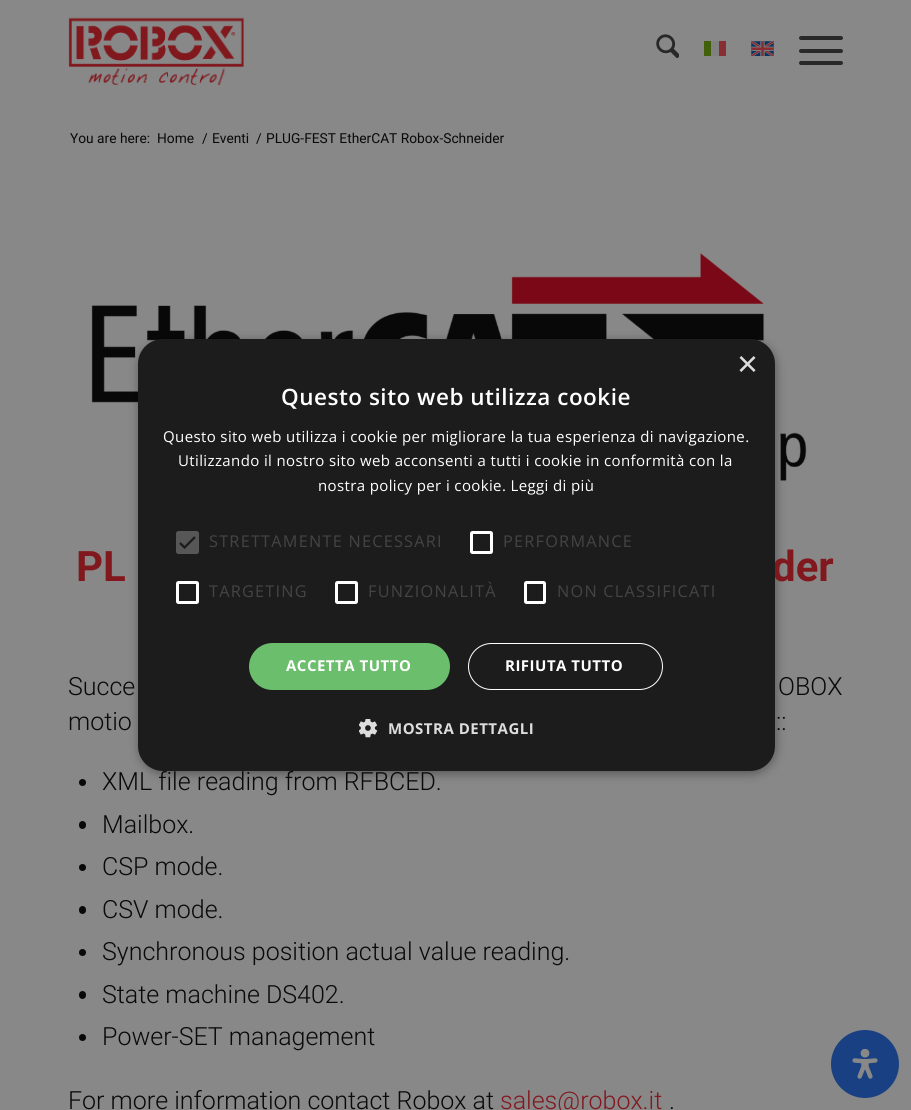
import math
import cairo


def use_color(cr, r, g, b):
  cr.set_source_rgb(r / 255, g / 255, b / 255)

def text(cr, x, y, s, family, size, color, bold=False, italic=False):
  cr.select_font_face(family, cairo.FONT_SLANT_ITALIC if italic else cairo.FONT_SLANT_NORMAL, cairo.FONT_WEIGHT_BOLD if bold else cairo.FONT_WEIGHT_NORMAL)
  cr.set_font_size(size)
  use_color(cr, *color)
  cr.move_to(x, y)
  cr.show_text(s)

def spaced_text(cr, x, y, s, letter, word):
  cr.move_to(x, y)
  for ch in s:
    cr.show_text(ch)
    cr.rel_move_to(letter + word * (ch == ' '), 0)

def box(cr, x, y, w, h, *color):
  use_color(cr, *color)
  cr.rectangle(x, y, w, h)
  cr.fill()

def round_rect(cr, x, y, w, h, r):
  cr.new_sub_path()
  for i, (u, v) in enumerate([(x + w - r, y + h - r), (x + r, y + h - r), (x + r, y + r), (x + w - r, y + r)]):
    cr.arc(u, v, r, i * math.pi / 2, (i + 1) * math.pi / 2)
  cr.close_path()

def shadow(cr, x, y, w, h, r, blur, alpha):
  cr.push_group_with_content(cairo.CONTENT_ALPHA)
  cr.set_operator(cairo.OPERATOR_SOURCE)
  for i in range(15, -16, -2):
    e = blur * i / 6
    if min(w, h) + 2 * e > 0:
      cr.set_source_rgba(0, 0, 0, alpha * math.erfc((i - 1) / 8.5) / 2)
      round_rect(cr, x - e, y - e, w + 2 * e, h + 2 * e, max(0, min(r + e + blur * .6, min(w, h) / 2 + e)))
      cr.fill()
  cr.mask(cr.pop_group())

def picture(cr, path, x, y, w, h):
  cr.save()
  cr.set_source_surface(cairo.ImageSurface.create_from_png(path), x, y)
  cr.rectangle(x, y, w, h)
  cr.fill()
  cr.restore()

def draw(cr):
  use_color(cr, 136, 136, 136)
  cr.paint()
  picture(cr, "img_01.png", 68, 17, 176, 68)
  picture(cr, "img_02.png", 656, 34, 23, 25)
  box(cr, 711, 41, 8, 15, 129, 129, 129)
  box(cr, 719, 41, 7, 15, 136, 46, 51)
  box(cr, 704, 41, 7, 15, 66, 96, 9)
  picture(cr, "img_03.png", 751, 41, 23, 15)
  use_color(cr, 41, 41, 41)
  round_rect(cr, 799, 49, 44, 4, 2)
  cr.fill()
  round_rect(cr, 799, 36, 44, 4, 2)
  cr.fill()
  round_rect(cr, 799, 61, 44, 4, 2)
  cr.fill()
  picture(cr, "img_04.png", 91, 253, 716, 229)
  use_color(cr, 9, 9, 9)
  cr.arc(82.5, 782.5, 3.5, 0, 2 * math.pi)
  cr.fill()
  round_rect(cr, 79, 821, 7, 8, 3.5)
  cr.fill()
  cr.arc(82.5, 867.5, 3.5, 0, 2 * math.pi)
  cr.fill()
  round_rect(cr, 79, 906, 7, 8, 3.5)
  cr.fill()
  cr.arc(82.5, 952.5, 3.5, 0, 2 * math.pi)
  cr.fill()
  round_rect(cr, 79, 991, 7, 8, 3.5)
  cr.fill()
  cr.arc(82.5, 1037.5, 3.5, 0, 2 * math.pi)
  cr.fill()
  use_color(cr, 0, 0, 0)
  shadow(cr, 139, 341, 637, 433, 25, 5, 0.35)
  use_color(cr, 25, 64, 130)
  cr.arc(865, 1064, 34, 0, 2 * math.pi)
  cr.fill()
  picture(cr, "img_06.png", 852, 1049, 26, 30)
  text(cr, 70, 143, "You are here:", "Roboto", 13.75, (9, 9, 9))
  text(cr, 157, 143, "Home", "Roboto", 13.75, (9, 9, 9))
  text(cr, 202, 143, "/", "Roboto", 13.75, (9, 9, 9))
  text(cr, 212, 143, "Eventi", "Roboto", 13.75, (9, 9, 9))
  text(cr, 256, 143, "/", "Roboto", 13.75, (9, 9, 9))
  text(cr, 266, 143, "PLUG-FEST EtherCAT Robox-Schneider", "Roboto", 13.75, (9, 9, 9))
  text(cr, 76, 581, "PL", "Roboto", 42, (129, 24, 30), bold=True)
  text(cr, 772, 581, "der", "Roboto", 42, (129, 24, 30), bold=True)
  cr.select_font_face("Roboto Light")
  cr.set_font_size(25)
  use_color(cr, 9, 9, 9)
  spaced_text(cr, 68, 695, "Succe", 0, 1)
  spaced_text(cr, 778, 695, "OBOX", 0, 1)
  text(cr, 68, 730, "motio", "Roboto Light", 25, (9, 9, 9))
  text(cr, 776, 730, "::", "Roboto Light", 25, (9, 9, 9))
  text(cr, 102, 790, "XML file reading from RFBCED.", "Roboto Light", 25, (9, 9, 9))
  text(cr, 102, 833, "Mailbox.", "Roboto Light", 25, (9, 9, 9))
  text(cr, 102, 875, "CSP mode.", "Roboto Light", 25, (9, 9, 9))
  text(cr, 102, 918, "CSV mode.", "Roboto Light", 25, (9, 9, 9))
  text(cr, 102, 960, "Synchronous position actual value reading.", "Roboto Light", 25, (9, 9, 9))
  text(cr, 102, 1003, "State machine DS402.", "Roboto Light", 25, (9, 9, 9))
  text(cr, 102, 1045, "Power-SET management", "Roboto Light", 25, (9, 9, 9))
  text(cr, 68, 1109, "For more information contact Robox at", "Roboto Light", 25, (9, 9, 9))
  text(cr, 500, 1109, "sales@robox.it", "Roboto Light", 25, (129, 24, 30))
  text(cr, 669, 1109, ".", "Roboto Light", 25, (9, 9, 9))
  use_color(cr, 28, 28, 28)
  round_rect(cr, 138, 339, 637, 432, 25)
  cr.fill()
  text(cr, 737, 376, "×", "Liberation Sans", 36, (221, 221, 221))
  cr.select_font_face("Open Sans SemiBold")
  cr.set_font_size(22.5)
  use_color(cr, 255, 255, 255)
  spaced_text(cr, 281, 405, "Questo sito web utilizza cookie", 0.5, 0)
  cr.select_font_face("Open Sans")
  cr.set_font_size(15)
  spaced_text(cr, 163, 442, "Questo sito web utilizza i cookie per migliorare la tua esperienza di navigazione.", 0.38, 0)
  spaced_text(cr, 178, 466, "Utilizzando il nostro sito web acconsenti a tutti i cookie in conformità con la", 0.38, 0)
  spaced_text(cr, 318, 491, "nostra policy per i cookie. Leggi di più", 0.38, 0)
  use_color(cr, 87, 87, 87)
  round_rect(cr, 176, 531, 23, 23, 2.5)
  cr.fill()
  cr.new_path()
  cr.move_to(180, 543)
  cr.line_to(184.5, 547.5)
  cr.line_to(195, 537)
  use_color(cr, 28, 28, 28)
  cr.set_line_width(2.3)
  cr.stroke()
  cr.set_font_size(16.25)
  use_color(cr, 68, 68, 68)
  spaced_text(cr, 209, 547, "STRETTAMENTE NECESSARI", 1.25, 0)
  round_rect(cr, 471.5, 532.5, 20, 20, 1)
  use_color(cr, 255, 255, 255)
  cr.set_line_width(3)
  cr.stroke()
  use_color(cr, 68, 68, 68)
  spaced_text(cr, 503, 547, "PERFORMANCE", 1.25, 0)
  round_rect(cr, 177.5, 582.5, 20, 20, 1)
  use_color(cr, 255, 255, 255)
  cr.stroke()
  use_color(cr, 68, 68, 68)
  spaced_text(cr, 209, 597, "TARGETING", 1.25, 0)
  round_rect(cr, 336.5, 582.5, 20, 20, 1)
  use_color(cr, 255, 255, 255)
  cr.stroke()
  use_color(cr, 68, 68, 68)
  spaced_text(cr, 368, 597, "FUNZIONALITÀ", 1.25, 0)
  round_rect(cr, 525.5, 582.5, 19, 20, 1)
  use_color(cr, 255, 255, 255)
  cr.stroke()
  use_color(cr, 68, 68, 68)
  spaced_text(cr, 557, 597, "NON CLASSIFICATI", 1.25, 0)
  use_color(cr, 107, 190, 107)
  round_rect(cr, 249, 643, 201, 47, 23.5)
  cr.fill()
  cr.select_font_face("Open Sans", cairo.FONT_SLANT_NORMAL, cairo.FONT_WEIGHT_BOLD)
  cr.set_font_size(15)
  use_color(cr, 255, 255, 255)
  spaced_text(cr, 286, 671, "ACCETTA TUTTO", 0.5, 0)
  round_rect(cr, 468.5, 643.5, 194, 46, 23)
  cr.set_line_width(1)
  cr.stroke()
  spaced_text(cr, 505, 671, "RIFIUTA TUTTO", 0.5, 0)
  picture(cr, "img_05.png", 359, 719, 19, 19)
  use_color(cr, 221, 221, 221)
  spaced_text(cr, 388, 734, "MOSTRA DETTAGLI", 0.5, 0)


surface = cairo.ImageSurface(cairo.FORMAT_RGB24, 911, 1110)
cr = cairo.Context(surface)
options = cairo.FontOptions()
options.set_hint_metrics(cairo.HINT_METRICS_OFF)
options.set_hint_style(cairo.HINT_STYLE_NONE)
cr.set_font_options(options)
cr.set_miter_limit(4)
draw(cr)
surface.write_to_png("out.png")
